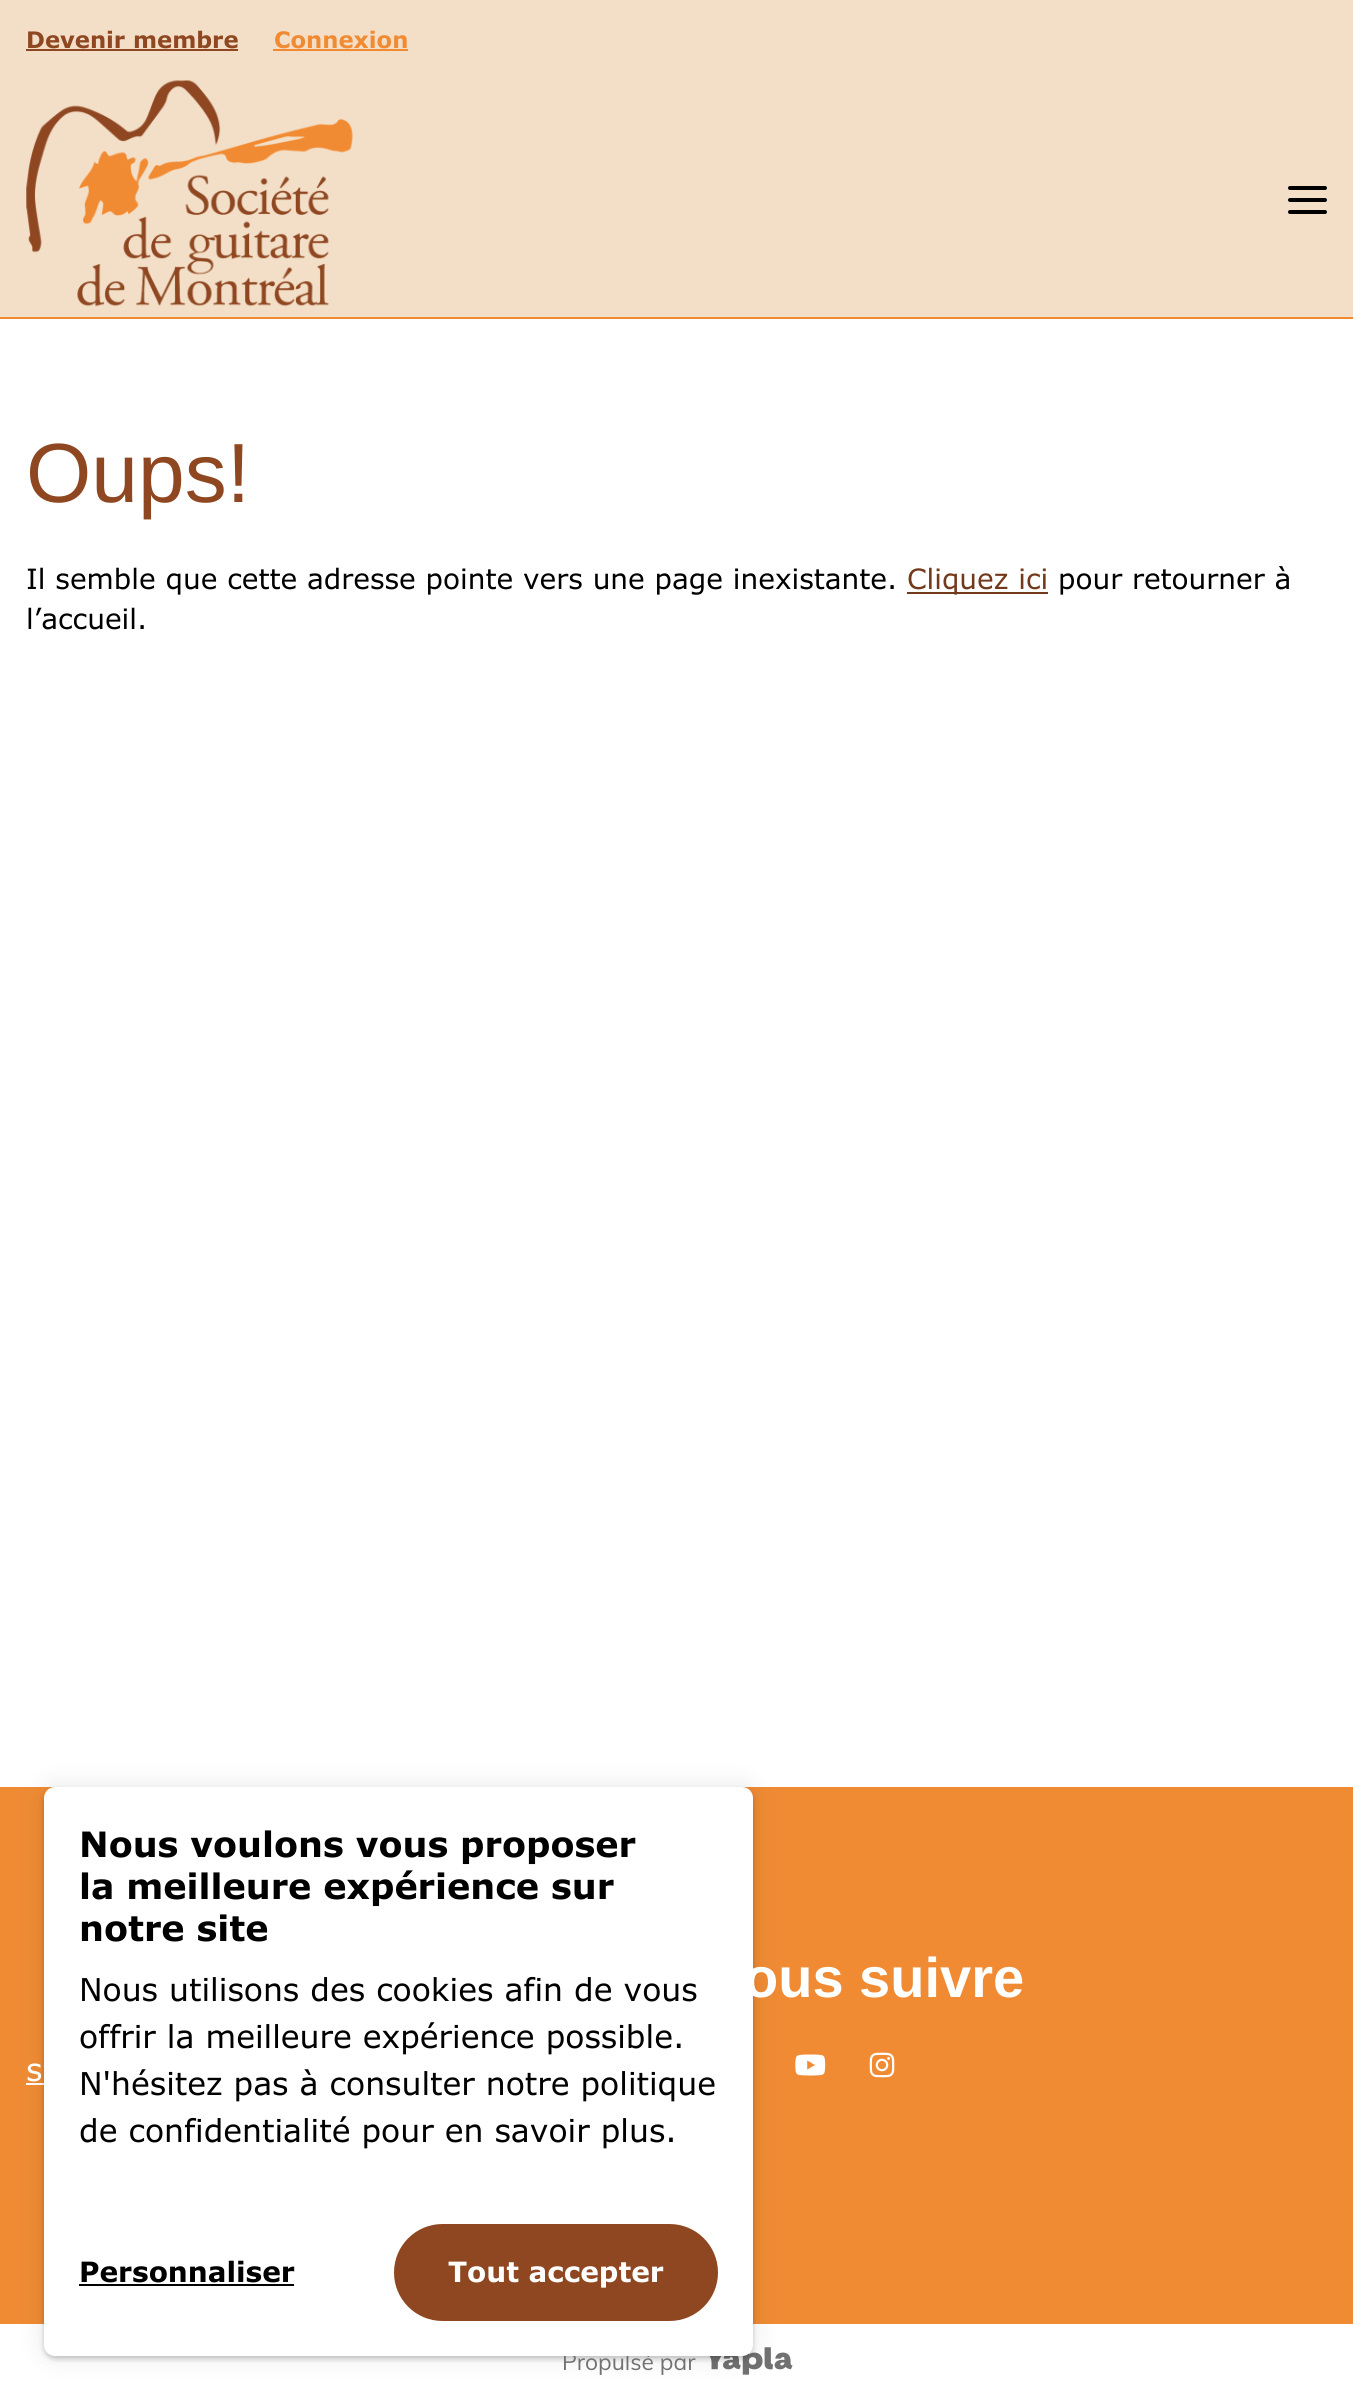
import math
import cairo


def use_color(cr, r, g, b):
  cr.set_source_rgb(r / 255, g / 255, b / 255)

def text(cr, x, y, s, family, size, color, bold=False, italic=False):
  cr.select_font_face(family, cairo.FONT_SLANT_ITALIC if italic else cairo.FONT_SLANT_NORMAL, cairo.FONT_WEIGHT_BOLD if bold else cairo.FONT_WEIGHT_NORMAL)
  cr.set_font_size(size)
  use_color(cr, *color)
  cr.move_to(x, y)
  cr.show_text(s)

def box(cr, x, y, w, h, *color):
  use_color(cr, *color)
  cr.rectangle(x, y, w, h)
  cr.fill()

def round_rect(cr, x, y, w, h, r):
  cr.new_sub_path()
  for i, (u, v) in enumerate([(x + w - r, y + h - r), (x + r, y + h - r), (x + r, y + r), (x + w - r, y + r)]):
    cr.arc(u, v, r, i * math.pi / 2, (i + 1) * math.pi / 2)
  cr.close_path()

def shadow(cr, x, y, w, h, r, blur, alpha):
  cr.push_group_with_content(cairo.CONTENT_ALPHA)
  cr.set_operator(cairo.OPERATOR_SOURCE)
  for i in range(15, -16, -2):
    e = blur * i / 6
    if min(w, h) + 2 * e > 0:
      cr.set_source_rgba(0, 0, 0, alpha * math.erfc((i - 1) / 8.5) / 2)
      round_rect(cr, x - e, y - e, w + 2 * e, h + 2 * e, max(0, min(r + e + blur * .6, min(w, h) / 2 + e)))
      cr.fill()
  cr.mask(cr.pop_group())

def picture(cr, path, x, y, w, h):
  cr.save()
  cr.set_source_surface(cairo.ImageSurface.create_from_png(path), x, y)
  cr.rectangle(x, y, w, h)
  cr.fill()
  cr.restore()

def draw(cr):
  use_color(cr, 255, 255, 255)
  cr.paint()
  box(cr, 0, 0, 1353, 317, 243, 223, 200)
  box(cr, 26, 49, 212, 2, 143, 71, 33)
  box(cr, 273, 49, 135, 2, 240, 139, 52)
  picture(cr, "img_01.png", 26, 80, 327, 227)
  box(cr, 0, 317, 1353, 2, 240, 139, 52)
  use_color(cr, 0, 0, 0)
  round_rect(cr, 1288, 186, 39, 4, 2)
  cr.fill()
  round_rect(cr, 1288, 198, 39, 4, 2)
  cr.fill()
  round_rect(cr, 1288, 210, 39, 4, 2)
  cr.fill()
  box(cr, 907, 592, 141, 2, 114, 57, 26)
  box(cr, 0, 1787, 1353, 537, 240, 139, 52)
  picture(cr, "img_02.png", 795, 2054, 31, 22)
  picture(cr, "img_03.png", 869, 2052, 26, 26)
  box(cr, 26, 2083, 18, 2, 255, 255, 255)
  picture(cr, "img_04.png", 709, 2347, 84, 28)
  use_color(cr, 0, 0, 0)
  shadow(cr, 44, 1787, 709, 569, 11, 13, 0.1)
  shadow(cr, 44, 1790, 709, 569, 11, 2.5, 0.2)
  text(cr, 26, 48, "Devenir membre", "Verdana", 22.75, (143, 71, 33), bold=True)
  text(cr, 274, 48, "Connexion", "Verdana", 22.75, (240, 139, 52), bold=True)
  text(cr, 26, 502, "Oups!", "Liberation Sans", 84, (143, 71, 33))
  text(cr, 26, 589, "Il semble que cette adresse pointe vers une page inexistante.", "Verdana", 28, (0, 0, 0))
  text(cr, 907, 589, "Cliquez ici", "Verdana", 28, (114, 57, 26))
  text(cr, 1058, 589, "pour retourner à", "Verdana", 28, (0, 0, 0))
  text(cr, 26, 629, "l’accueil.", "Verdana", 28, (0, 0, 0))
  text(cr, 744, 1997, "ous suivre", "Liberation Sans", 56, (255, 255, 255), bold=True)
  text(cr, 26, 2081, "s", "Verdana", 31.5, (255, 255, 255))
  text(cr, 562, 2370, "Propulsé par", "Muli", 22.75, (113, 113, 113))
  use_color(cr, 255, 255, 255)
  round_rect(cr, 44, 1787, 709, 569, 11)
  cr.fill()
  text(cr, 79, 1857, "Nous voulons vous proposer", "Verdana", 35, (0, 0, 0), bold=True)
  text(cr, 79, 1899, "la meilleure expérience sur", "Verdana", 35, (0, 0, 0), bold=True)
  text(cr, 79, 1941, "notre site", "Verdana", 35, (0, 0, 0), bold=True)
  text(cr, 79, 2001, "Nous utilisons des cookies afin de vous", "Verdana", 31.5, (0, 0, 0))
  text(cr, 79, 2048, "offrir la meilleure expérience possible.", "Verdana", 31.5, (0, 0, 0))
  text(cr, 79, 2095, "N'hésitez pas à consulter notre politique", "Verdana", 31.5, (0, 0, 0))
  text(cr, 79, 2142, "de confidentialité pour en savoir plus.", "Verdana", 31.5, (0, 0, 0))
  text(cr, 79, 2282, "Personnaliser", "Verdana", 28, (0, 0, 0), bold=True)
  box(cr, 79, 2284, 215, 2, 0, 0, 0)
  use_color(cr, 143, 71, 33)
  round_rect(cr, 395, 2225, 322, 95, 47.5)
  cr.fill_preserve()
  cr.stroke()
  text(cr, 448, 2282, "Tout accepter", "Verdana", 28, (255, 255, 255), bold=True)


surface = cairo.ImageSurface(cairo.FORMAT_RGB24, 1353, 2399)
cr = cairo.Context(surface)
options = cairo.FontOptions()
options.set_hint_metrics(cairo.HINT_METRICS_OFF)
options.set_hint_style(cairo.HINT_STYLE_NONE)
cr.set_font_options(options)
cr.set_miter_limit(4)
draw(cr)
surface.write_to_png("out.png")
